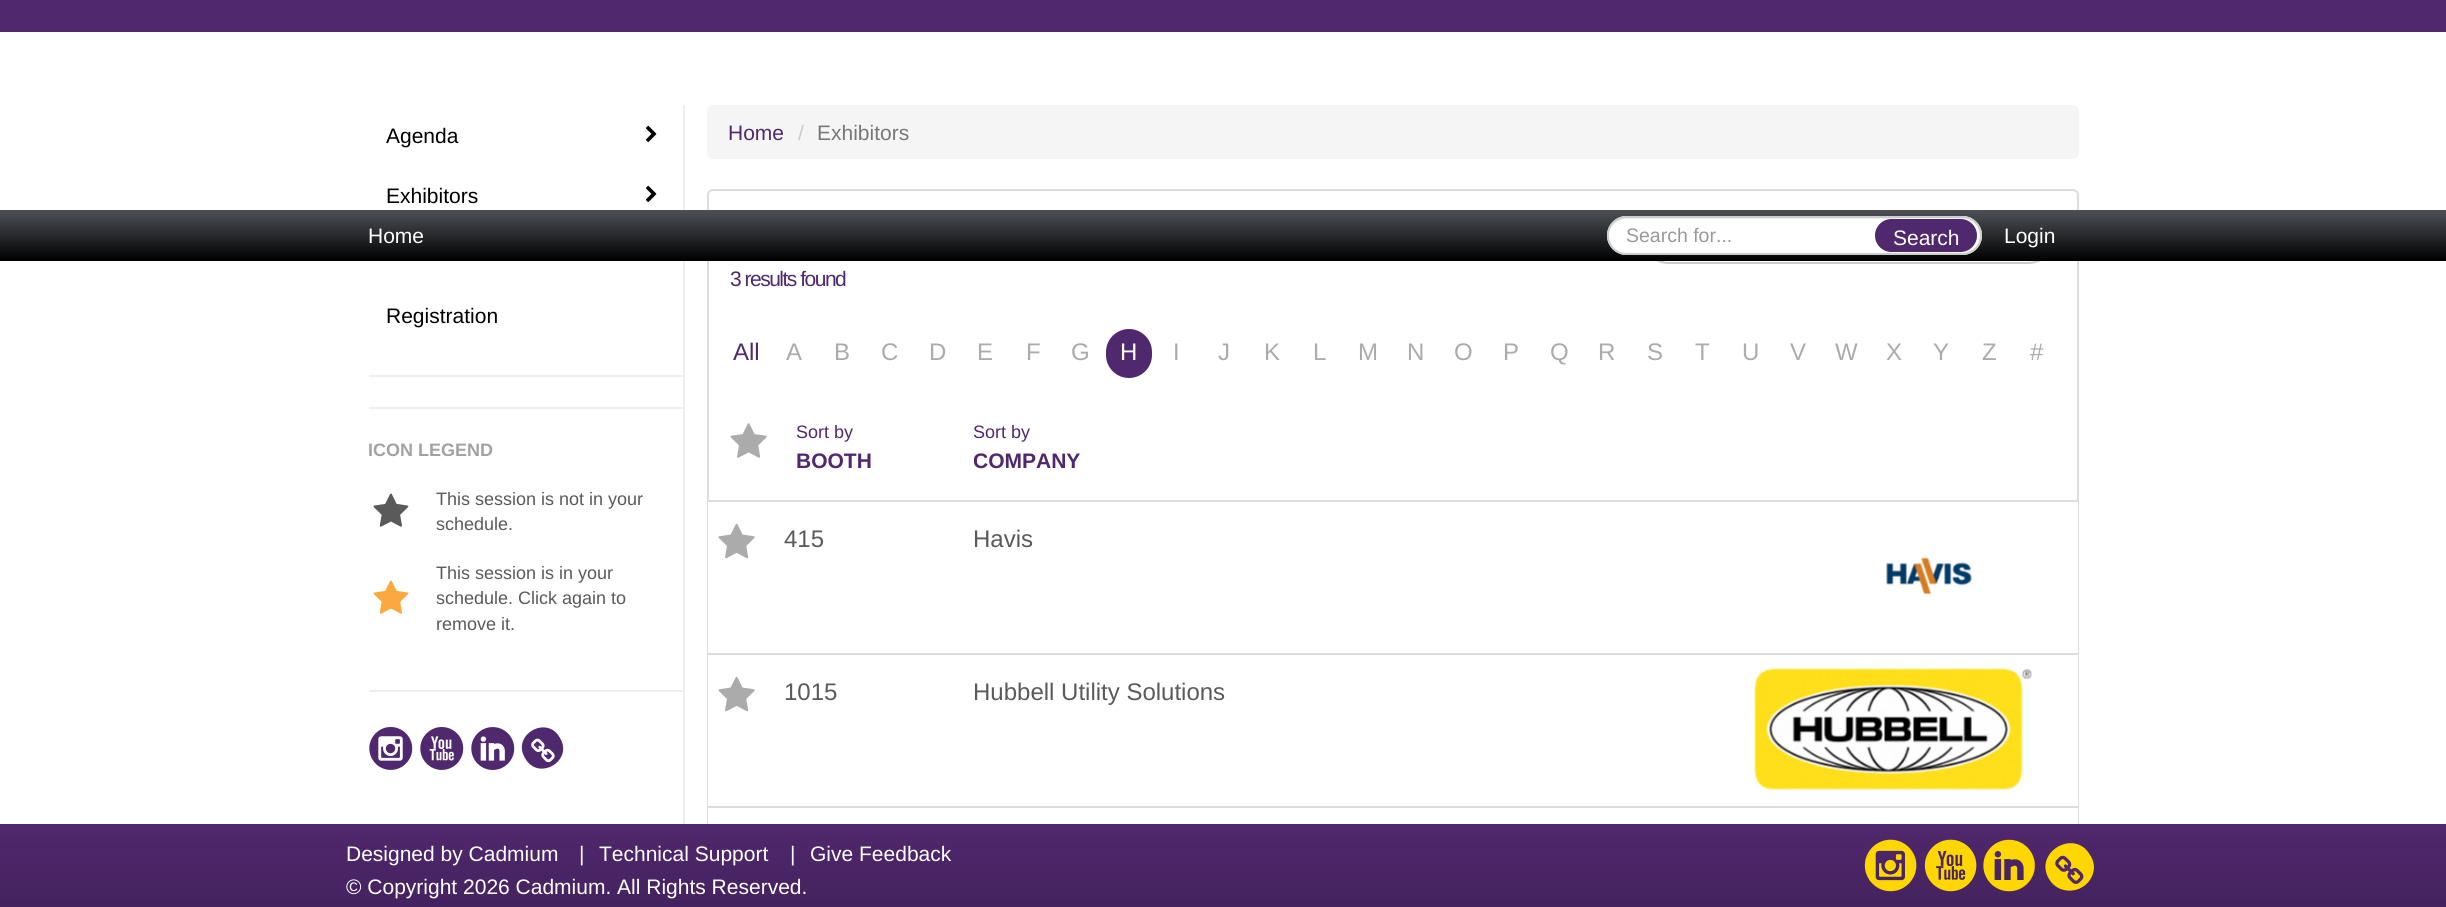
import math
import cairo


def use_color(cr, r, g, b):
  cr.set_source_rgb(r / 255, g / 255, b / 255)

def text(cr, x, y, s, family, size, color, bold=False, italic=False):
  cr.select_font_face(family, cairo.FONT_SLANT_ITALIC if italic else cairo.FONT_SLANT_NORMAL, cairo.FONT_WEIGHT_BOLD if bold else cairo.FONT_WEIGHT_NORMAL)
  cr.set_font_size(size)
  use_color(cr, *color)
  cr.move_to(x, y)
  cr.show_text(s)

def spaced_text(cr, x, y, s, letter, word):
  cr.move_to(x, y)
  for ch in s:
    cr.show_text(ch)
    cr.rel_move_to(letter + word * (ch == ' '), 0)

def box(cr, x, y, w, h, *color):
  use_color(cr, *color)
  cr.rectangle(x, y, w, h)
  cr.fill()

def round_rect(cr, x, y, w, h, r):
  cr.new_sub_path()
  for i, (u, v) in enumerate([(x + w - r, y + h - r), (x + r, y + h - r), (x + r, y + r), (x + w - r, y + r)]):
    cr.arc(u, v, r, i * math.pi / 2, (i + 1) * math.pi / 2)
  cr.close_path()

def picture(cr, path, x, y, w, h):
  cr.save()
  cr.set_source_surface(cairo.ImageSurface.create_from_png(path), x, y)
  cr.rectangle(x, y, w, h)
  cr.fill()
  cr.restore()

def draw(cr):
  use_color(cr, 255, 255, 255)
  cr.paint()
  box(cr, 0, 0, 2446, 32, 80, 40, 110)
  box(cr, 683, 105, 2, 719, 238, 238, 238)
  picture(cr, "img_01.png", 645, 125, 12, 17)
  picture(cr, "img_01.png", 645, 185, 12, 17)
  box(cr, 369, 375, 314, 2, 238, 238, 238)
  box(cr, 369, 407, 314, 2, 238, 238, 238)
  picture(cr, "img_02.png", 373, 493, 36, 34)
  picture(cr, "img_03.png", 373, 580, 36, 34)
  box(cr, 369, 690, 314, 2, 238, 238, 238)
  picture(cr, "img_04.png", 369, 727, 44, 43)
  picture(cr, "img_05.png", 420, 727, 44, 43)
  picture(cr, "img_06.png", 471, 727, 44, 43)
  use_color(cr, 80, 40, 110)
  cr.new_path()
  cr.move_to(560, 738)
  cr.curve_to(574, 761, 538, 782, 525, 758)
  cr.curve_to(511, 735, 547, 714, 560, 738)
  cr.close_path()
  cr.fill()
  picture(cr, "img_07.png", 531, 738, 24, 25)
  use_color(cr, 245, 245, 245)
  round_rect(cr, 707, 105, 1372, 54, 6)
  cr.fill()
  round_rect(cr, 708, 190, 1370, 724, 5)
  use_color(cr, 221, 221, 221)
  cr.stroke()
  round_rect(cr, 1644, 214, 409, 49, 24.5)
  use_color(cr, 204, 204, 204)
  cr.stroke()
  use_color(cr, 80, 40, 110)
  round_rect(cr, 1106, 329, 46, 49, 23)
  cr.fill()
  picture(cr, "img_08.png", 730, 423, 37, 35)
  box(cr, 708, 502, 1370, 151, 255, 255, 255)
  box(cr, 708, 500, 1370, 2, 221, 221, 221)
  picture(cr, "img_09.png", 718, 523, 37, 36)
  picture(cr, "img_10.png", 1886, 557, 86, 38)
  box(cr, 708, 655, 1370, 151, 255, 255, 255)
  box(cr, 708, 653, 1370, 2, 221, 221, 221)
  picture(cr, "img_09.png", 718, 676, 37, 36)
  picture(cr, "img_11.png", 1754, 668, 278, 122)
  box(cr, 708, 808, 1370, 16, 255, 255, 255)
  box(cr, 708, 806, 1370, 2, 221, 221, 221)
  gradient = cairo.LinearGradient(1223, 210, 1223, 261)
  gradient.add_color_stop_rgba(0, 0.302, 0.318, 0.337, 1)
  gradient.add_color_stop_rgba(1, 0, 0, 0, 1)
  cr.set_source(gradient)
  cr.rectangle(0, 210, 2446, 51)
  cr.fill()
  use_color(cr, 255, 255, 255)
  round_rect(cr, 1607, 216, 375, 39, 19.5)
  cr.fill()
  use_color(cr, 236, 236, 236)
  cr.new_path()
  cr.move_to(1626, 219)
  cr.line_to(1962, 219)
  cr.curve_to(1974, 219, 1980, 228, 1980, 236)
  cr.curve_to(1980, 226, 1972, 218, 1962, 218)
  cr.line_to(1626, 218)
  cr.curve_to(1616, 218, 1608, 227, 1608, 237)
  cr.curve_to(1608, 227, 1616, 219, 1626, 219)
  cr.close_path()
  cr.fill()
  round_rect(cr, 1608, 217, 373, 37, 18.5)
  use_color(cr, 204, 204, 204)
  cr.stroke()
  use_color(cr, 80, 40, 110)
  round_rect(cr, 1875, 219, 102, 33, 16.5)
  cr.fill()
  gradient = cairo.LinearGradient(1223, 823, 1223, 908)
  gradient.add_color_stop_rgba(0, 0.314, 0.157, 0.431, 1)
  gradient.add_color_stop_rgba(1, 0.267, 0.133, 0.369, 1)
  cr.set_source(gradient)
  cr.rectangle(0, 824, 2446, 83)
  cr.fill()
  picture(cr, "img_12.png", 1864, 839, 53, 53)
  picture(cr, "img_13.png", 1924, 839, 53, 53)
  picture(cr, "img_14.png", 1983, 839, 52, 53)
  use_color(cr, 254, 215, 0)
  cr.new_path()
  cr.move_to(2090, 855)
  cr.curve_to(2093, 859, 2094, 864, 2094, 868)
  cr.curve_to(2092, 892, 2061, 899, 2049, 879)
  cr.curve_to(2033, 852, 2075, 828, 2090, 855)
  cr.close_path()
  cr.fill()
  picture(cr, "img_15.png", 2055, 855, 29, 29)
  text(cr, 386, 143, "Agenda", "Liberation Sans", 21, (0, 0, 0))
  text(cr, 386, 203, "Exhibitors", "Liberation Sans", 21, (0, 0, 0))
  text(cr, 386, 323, "Registration", "Liberation Sans", 21, (0, 0, 0))
  text(cr, 368, 456, "ICON LEGEND", "Liberation Sans", 18, (162, 162, 162), bold=True)
  text(cr, 436, 505, "This session is not in your", "Liberation Sans", 18, (90, 90, 90))
  text(cr, 436, 530, "schedule.", "Liberation Sans", 18, (90, 90, 90))
  text(cr, 436, 579, "This session is in your", "Liberation Sans", 18, (90, 90, 90))
  text(cr, 436, 604, "schedule. Click again to", "Liberation Sans", 18, (90, 90, 90))
  text(cr, 436, 630, "remove it.", "Liberation Sans", 18, (90, 90, 90))
  text(cr, 728, 140, "Home", "Liberation Sans", 21, (80, 40, 110))
  text(cr, 798, 140, "/", "Liberation Sans", 21, (204, 204, 204))
  text(cr, 817, 140, "Exhibitors", "Liberation Sans", 21, (119, 119, 119))
  use_color(cr, 80, 40, 110)
  spaced_text(cr, 730, 286, "3 results found", -1.5, 0)
  text(cr, 733, 360, "All", "Liberation Sans", 24, (80, 40, 110))
  text(cr, 786, 360, "A", "Liberation Sans", 24, (171, 171, 171))
  text(cr, 834, 360, "B", "Liberation Sans", 24, (171, 171, 171))
  text(cr, 881, 360, "C", "Liberation Sans", 24, (171, 171, 171))
  text(cr, 929, 360, "D", "Liberation Sans", 24, (171, 171, 171))
  text(cr, 977, 360, "E", "Liberation Sans", 24, (171, 171, 171))
  text(cr, 1026, 360, "F", "Liberation Sans", 24, (171, 171, 171))
  text(cr, 1071, 360, "G", "Liberation Sans", 24, (171, 171, 171))
  text(cr, 1120, 360, "H", "Liberation Sans", 24, (255, 255, 255))
  text(cr, 1173, 360, "I", "Liberation Sans", 24, (171, 171, 171))
  text(cr, 1218, 360, "J", "Liberation Sans", 24, (171, 171, 171))
  text(cr, 1264, 360, "K", "Liberation Sans", 24, (171, 171, 171))
  text(cr, 1313, 360, "L", "Liberation Sans", 24, (171, 171, 171))
  text(cr, 1358, 360, "M", "Liberation Sans", 24, (171, 171, 171))
  text(cr, 1407, 360, "N", "Liberation Sans", 24, (171, 171, 171))
  text(cr, 1454, 360, "O", "Liberation Sans", 24, (171, 171, 171))
  text(cr, 1503, 360, "P", "Liberation Sans", 24, (171, 171, 171))
  text(cr, 1550, 360, "Q", "Liberation Sans", 24, (171, 171, 171))
  text(cr, 1598, 360, "R", "Liberation Sans", 24, (171, 171, 171))
  text(cr, 1647, 360, "S", "Liberation Sans", 24, (171, 171, 171))
  text(cr, 1695, 360, "T", "Liberation Sans", 24, (171, 171, 171))
  text(cr, 1742, 360, "U", "Liberation Sans", 24, (171, 171, 171))
  text(cr, 1790, 360, "V", "Liberation Sans", 24, (171, 171, 171))
  text(cr, 1835, 360, "W", "Liberation Sans", 24, (171, 171, 171))
  text(cr, 1886, 360, "X", "Liberation Sans", 24, (171, 171, 171))
  text(cr, 1933, 360, "Y", "Liberation Sans", 24, (171, 171, 171))
  text(cr, 1982, 360, "Z", "Liberation Sans", 24, (171, 171, 171))
  text(cr, 2030, 360, "#", "Liberation Sans", 24, (171, 171, 171))
  text(cr, 796, 438, "Sort by", "Liberation Sans", 18, (80, 40, 110))
  text(cr, 796, 468, "BOOTH", "Liberation Sans", 21, (80, 40, 110), bold=True)
  text(cr, 973, 438, "Sort by", "Liberation Sans", 18, (80, 40, 110))
  text(cr, 973, 468, "COMPANY", "Liberation Sans", 21, (80, 40, 110), bold=True)
  text(cr, 784, 547, "415", "Liberation Sans", 24, (90, 90, 90))
  text(cr, 973, 547, "Havis", "Liberation Sans", 24, (90, 90, 90))
  text(cr, 784, 700, "1015", "Liberation Sans", 24, (90, 90, 90))
  text(cr, 973, 700, "Hubbell Utility Solutions", "Liberation Sans", 24, (90, 90, 90))
  text(cr, 368, 243, "Home", "Liberation Sans", 21, (255, 255, 255))
  text(cr, 1626, 242, "Search for...", "Liberation Sans", 19.5, (153, 153, 153))
  text(cr, 1893, 245, "Search", "Liberation Sans", 21, (255, 255, 255))
  text(cr, 2004, 243, "Login", "Liberation Sans", 21, (255, 255, 255))
  text(cr, 346, 861, "Designed by Cadmium", "Liberation Sans", 21, (255, 255, 255))
  text(cr, 579, 861, "|", "Liberation Sans", 21, (255, 255, 255))
  text(cr, 599, 861, "Technical Support", "Liberation Sans", 21, (255, 255, 255))
  text(cr, 790, 861, "|", "Liberation Sans", 21, (255, 255, 255))
  text(cr, 810, 861, "Give Feedback", "Liberation Sans", 21, (255, 255, 255))
  text(cr, 346, 894, "© Copyright 2026 Cadmium. All Rights Reserved.", "Liberation Sans", 21, (255, 255, 255))


surface = cairo.ImageSurface(cairo.FORMAT_RGB24, 2446, 907)
cr = cairo.Context(surface)
options = cairo.FontOptions()
options.set_hint_metrics(cairo.HINT_METRICS_OFF)
options.set_hint_style(cairo.HINT_STYLE_NONE)
cr.set_font_options(options)
cr.set_miter_limit(4)
draw(cr)
surface.write_to_png("out.png")
